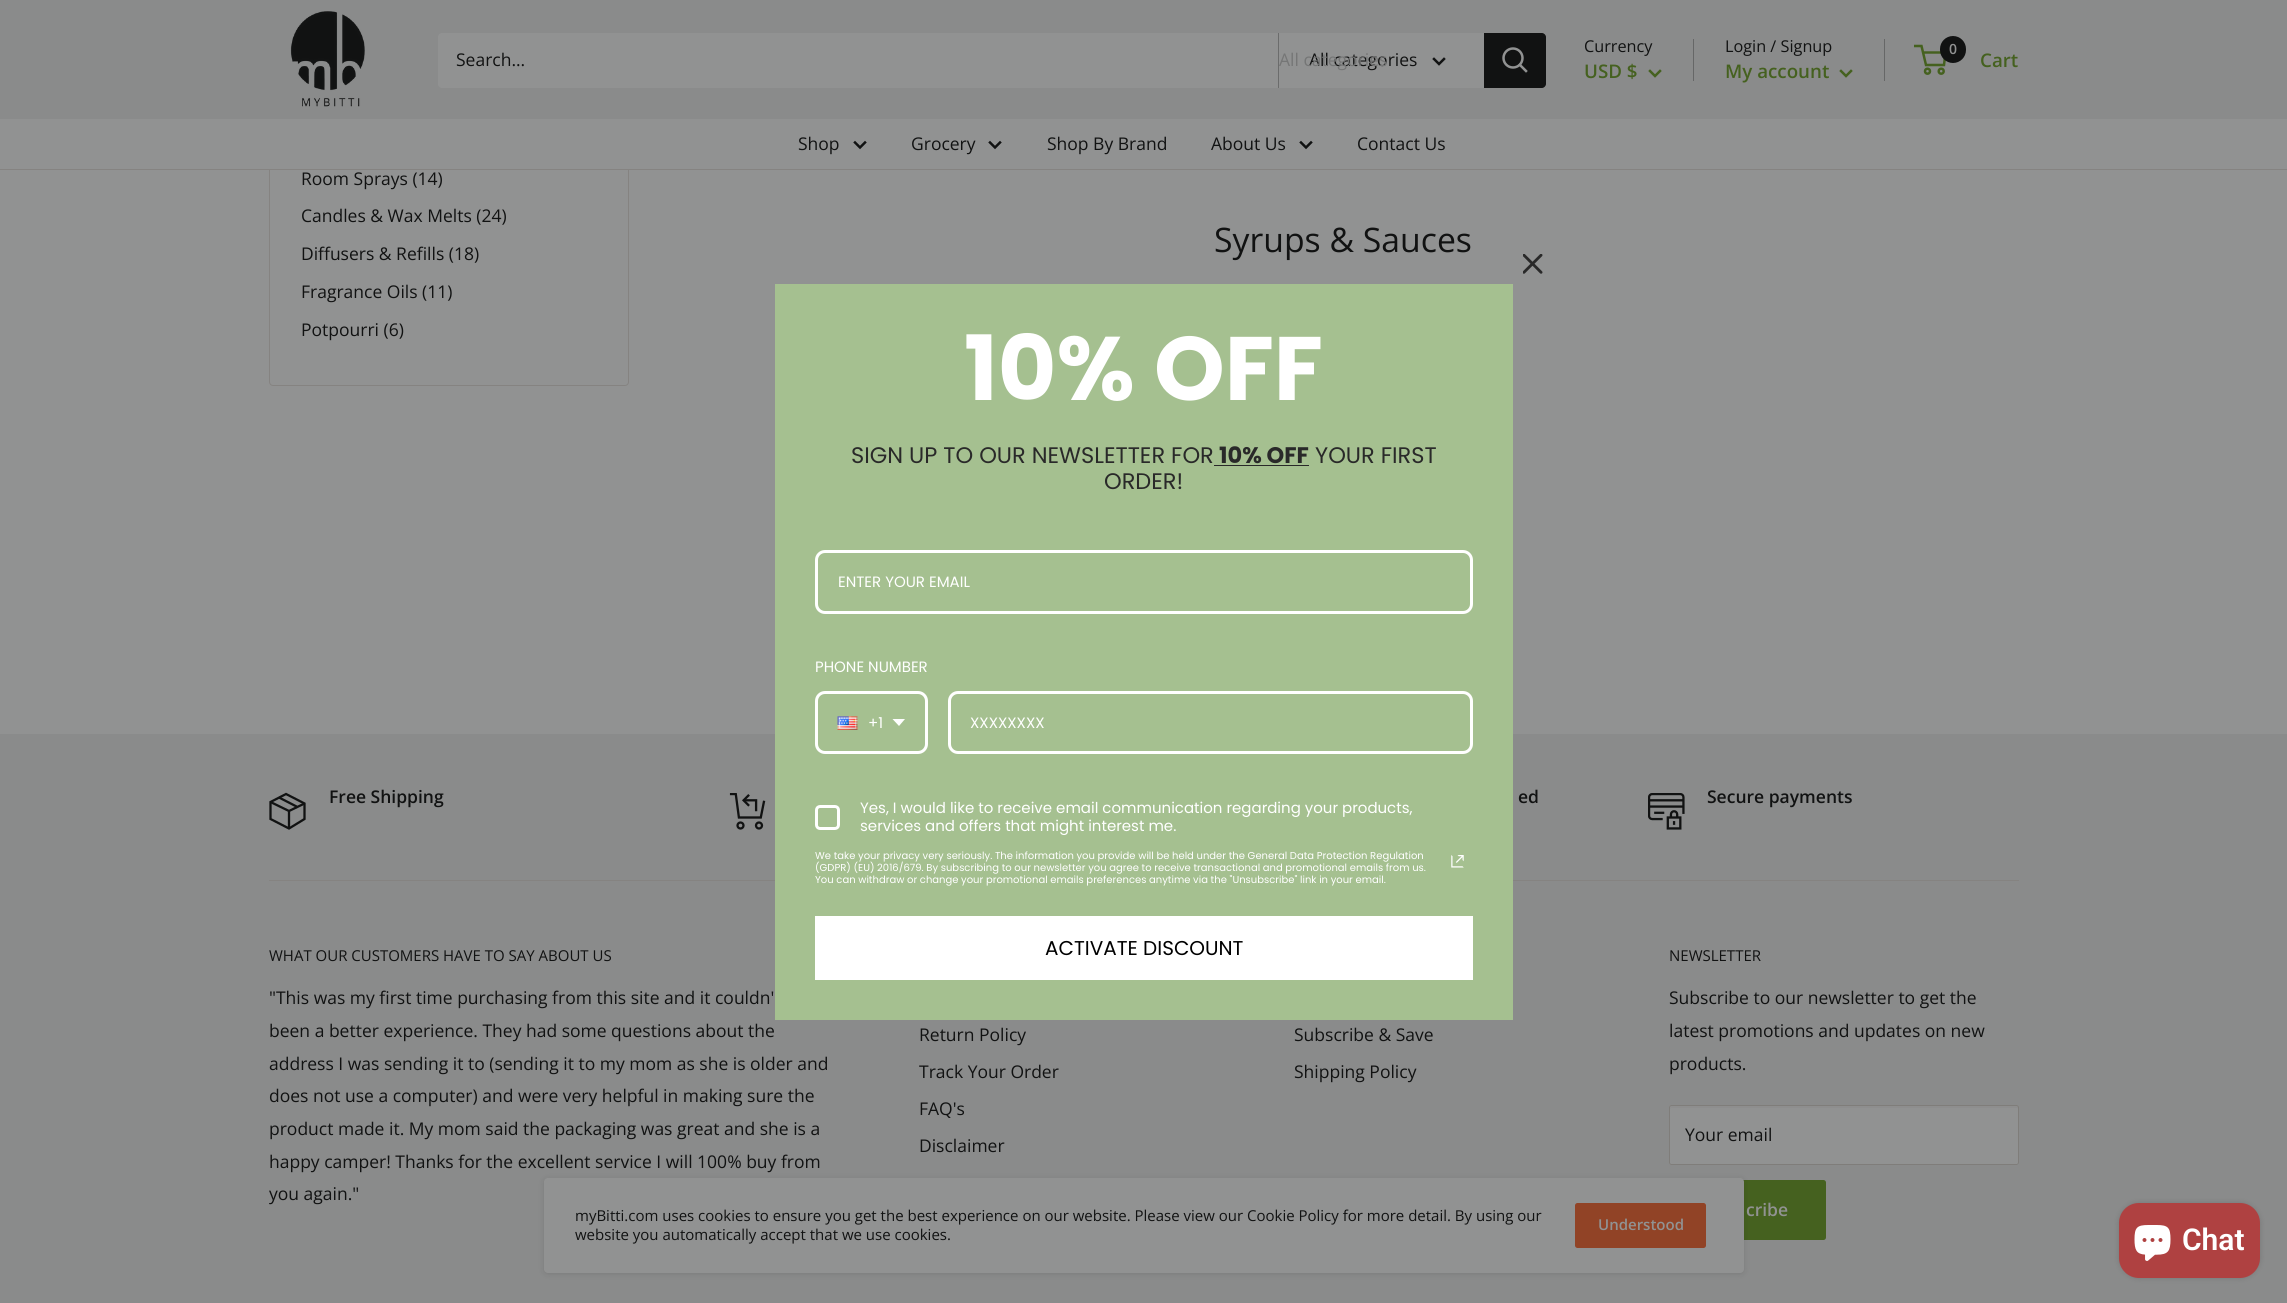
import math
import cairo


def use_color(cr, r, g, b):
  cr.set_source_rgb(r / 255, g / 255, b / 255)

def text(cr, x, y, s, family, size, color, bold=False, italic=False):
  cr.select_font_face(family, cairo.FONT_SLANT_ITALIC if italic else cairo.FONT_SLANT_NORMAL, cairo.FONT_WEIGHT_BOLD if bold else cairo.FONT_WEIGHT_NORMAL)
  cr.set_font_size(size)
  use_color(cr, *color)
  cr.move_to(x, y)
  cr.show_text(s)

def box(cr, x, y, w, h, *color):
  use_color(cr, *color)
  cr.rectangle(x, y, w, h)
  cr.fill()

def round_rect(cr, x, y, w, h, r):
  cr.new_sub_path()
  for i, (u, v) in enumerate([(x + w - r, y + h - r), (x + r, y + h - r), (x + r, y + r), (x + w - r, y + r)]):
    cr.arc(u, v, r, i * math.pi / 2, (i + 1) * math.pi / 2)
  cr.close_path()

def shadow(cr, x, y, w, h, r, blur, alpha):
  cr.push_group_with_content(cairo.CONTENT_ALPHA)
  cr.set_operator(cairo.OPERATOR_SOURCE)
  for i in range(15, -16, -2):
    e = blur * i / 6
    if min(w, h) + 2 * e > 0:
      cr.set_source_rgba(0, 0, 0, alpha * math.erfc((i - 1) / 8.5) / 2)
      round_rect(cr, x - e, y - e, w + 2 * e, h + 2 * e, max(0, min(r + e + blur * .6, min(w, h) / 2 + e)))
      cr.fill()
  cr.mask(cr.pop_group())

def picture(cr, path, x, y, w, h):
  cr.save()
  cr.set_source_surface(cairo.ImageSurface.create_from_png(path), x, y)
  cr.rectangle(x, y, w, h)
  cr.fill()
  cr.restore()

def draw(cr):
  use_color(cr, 145, 146, 146)
  cr.paint()
  round_rect(cr, 269.5, 4.5, 359, 381, 3.5)
  use_color(cr, 133, 131, 129)
  cr.set_line_width(1)
  cr.stroke()
  box(cr, 0, 0, 2287, 119, 138, 139, 139)
  picture(cr, "img_01.png", 290, 11, 75, 96)
  use_color(cr, 145, 146, 146)
  round_rect(cr, 438, 33, 1108, 55, 4)
  cr.fill()
  box(cr, 1278, 33, 1, 55, 107, 108, 108)
  cr.new_path()
  cr.move_to(1444, 59)
  cr.line_to(1439, 64)
  cr.line_to(1434, 59)
  use_color(cr, 17, 18, 18)
  cr.set_line_width(2.5)
  cr.set_line_cap(cairo.LINE_CAP_SQUARE)
  cr.stroke()
  cr.new_path()
  cr.move_to(1484, 33)
  cr.line_to(1542, 33)
  cr.curve_to(1544, 33, 1546, 35, 1546, 37)
  cr.line_to(1546, 84)
  cr.curve_to(1546, 86, 1544, 88, 1542, 88)
  cr.line_to(1484, 88)
  cr.close_path()
  cr.fill()
  cr.new_path()
  cr.move_to(1526, 71)
  cr.line_to(1520, 65)
  use_color(cr, 145, 146, 146)
  cr.stroke()
  cr.arc(1513, 58, 9.5, 0, 2 * math.pi)
  cr.set_line_cap(cairo.LINE_CAP_BUTT)
  cr.stroke()
  cr.new_path()
  cr.move_to(1660, 71)
  cr.line_to(1655, 76)
  cr.line_to(1650, 71)
  use_color(cr, 69, 97, 31)
  cr.set_line_cap(cairo.LINE_CAP_SQUARE)
  cr.stroke()
  box(cr, 1693, 39, 1, 42, 102, 103, 103)
  box(cr, 1884, 39, 1, 42, 102, 103, 103)
  cr.new_path()
  cr.move_to(1851, 71)
  cr.line_to(1846, 76)
  cr.line_to(1841, 71)
  use_color(cr, 69, 97, 31)
  cr.stroke()
  cr.arc(1927.5, 71.2, 2.5, 0, 2 * math.pi)
  cr.set_line_cap(cairo.LINE_CAP_BUTT)
  cr.stroke()
  cr.arc(1941.2, 71.2, 2.5, 0, 2 * math.pi)
  cr.stroke()
  cr.new_path()
  cr.move_to(1923, 52.5)
  cr.line_to(1945.5, 52.5)
  cr.line_to(1944, 65)
  cr.line_to(1926, 65)
  cr.line_to(1921.5, 46)
  cr.line_to(1914, 46)
  cr.stroke()
  use_color(cr, 17, 18, 18)
  round_rect(cr, 1940, 36, 26, 27, 13)
  cr.fill()
  box(cr, 269, 119, 360, 50, 145, 146, 146)
  box(cr, 0, 169, 2287, 1, 133, 131, 129)
  cr.new_path()
  cr.move_to(865, 142.5)
  cr.line_to(860, 147.5)
  cr.line_to(855, 142.5)
  use_color(cr, 17, 18, 18)
  cr.set_line_cap(cairo.LINE_CAP_SQUARE)
  cr.stroke()
  cr.new_path()
  cr.move_to(1000, 142.5)
  cr.line_to(995, 147.5)
  cr.line_to(990, 142.5)
  cr.stroke()
  cr.new_path()
  cr.move_to(1311, 142.5)
  cr.line_to(1306, 147.5)
  cr.line_to(1301, 142.5)
  cr.stroke()
  picture(cr, "img_02.png", 1523, 254, 20, 20)
  box(cr, 0, 734, 2287, 569, 138, 139, 139)
  box(cr, 269, 880, 1750, 1, 133, 131, 129)
  box(cr, 775, 284, 738, 736, 165, 192, 144)
  box(cr, 1214, 465, 95, 1, 41, 41, 41)
  round_rect(cr, 816.5, 551.5, 655, 61, 8.5)
  use_color(cr, 255, 255, 255)
  cr.set_line_width(3)
  cr.set_line_cap(cairo.LINE_CAP_BUTT)
  cr.stroke()
  round_rect(cr, 816.5, 692.5, 110, 60, 8.5)
  cr.stroke()
  picture(cr, "img_03.png", 837, 716, 21, 14)
  cr.set_fill_rule(cairo.FILL_RULE_EVEN_ODD)
  cr.new_path()
  cr.move_to(892.5, 719)
  cr.line_to(905, 719)
  cr.line_to(899, 726)
  cr.close_path()
  cr.fill()
  round_rect(cr, 949.5, 692.5, 522, 60, 8.5)
  cr.stroke()
  round_rect(cr, 816.5, 806.5, 22, 22, 3.5)
  cr.stroke()
  picture(cr, "img_04.png", 1451, 855, 13, 13)
  box(cr, 815, 916, 658, 64, 255, 255, 255)
  cr.new_path()
  cr.move_to(279, 797.5)
  cr.line_to(297.5, 807)
  cr.move_to(304.5, 803.5)
  cr.line_to(289, 811)
  cr.line_to(270.5, 802)
  cr.move_to(289, 811)
  cr.line_to(289, 828.5)
  use_color(cr, 17, 18, 18)
  cr.set_line_width(2.3)
  cr.stroke()
  cr.new_path()
  cr.move_to(304.5, 803.5)
  cr.line_to(304.5, 819)
  cr.line_to(289, 828.5)
  cr.line_to(270.5, 819)
  cr.line_to(270.5, 802)
  cr.line_to(286, 794)
  cr.close_path()
  cr.set_line_cap(cairo.LINE_CAP_SQUARE)
  cr.stroke()
  picture(cr, "img_05.png", 729, 793, 37, 37)
  picture(cr, "img_06.png", 1648, 793, 37, 37)
  use_color(cr, 145, 146, 146)
  round_rect(cr, 1669, 1105, 350, 60, 2.5)
  cr.fill()
  use_color(cr, 142, 142, 142)
  cr.set_fill_rule(cairo.FILL_RULE_WINDING)
  cr.new_path()
  cr.move_to(1671, 1108)
  cr.line_to(2016, 1108)
  cr.curve_to(2017, 1108, 2018, 1108, 2018, 1109)
  cr.line_to(2018, 1106)
  cr.line_to(1671, 1106)
  cr.curve_to(1670, 1106, 1670, 1108, 1670, 1109)
  cr.close_path()
  cr.fill()
  round_rect(cr, 1669.5, 1105.5, 349, 59, 2)
  use_color(cr, 127, 125, 122)
  cr.set_line_width(1)
  cr.set_line_cap(cairo.LINE_CAP_BUTT)
  cr.stroke()
  use_color(cr, 69, 97, 31)
  round_rect(cr, 1669, 1180, 157, 60, 2.5)
  cr.fill()
  use_color(cr, 17, 18, 18)
  shadow(cr, 543, 1178, 1202, 97, 5, 2.5, 0.1)
  use_color(cr, 145, 146, 146)
  round_rect(cr, 544, 1178, 1200, 95, 4)
  cr.fill()
  use_color(cr, 145, 67, 38)
  round_rect(cr, 1575, 1203, 131, 45, 2.5)
  cr.fill()
  use_color(cr, 0, 0, 0)
  shadow(cr, 2119, 1203, 141, 75, 20, 3, 0.15)
  use_color(cr, 175, 65, 65)
  round_rect(cr, 2119, 1203, 141, 75, 20)
  cr.fill()
  picture(cr, "img_07.png", 2134, 1225, 37, 36)
  text(cr, 456, 66, "Search...", "Open Sans", 17.5, (17, 18, 18))
  text(cr, 1309, 66, "All categories", "Open Sans", 17.5, (17, 18, 18))
  text(cr, 1279, 66, "All categories", "Open Sans", 17.5, (117, 118, 118))
  text(cr, 1584, 52, "Currency", "Open Sans", 16.25, (17, 18, 18))
  text(cr, 1584, 78, "USD $", "Open Sans SemiBold", 18.75, (69, 97, 31))
  text(cr, 1725, 52, "Login / Signup", "Open Sans", 16.25, (17, 18, 18))
  text(cr, 1725, 78, "My account", "Open Sans SemiBold", 18.75, (69, 97, 31))
  text(cr, 1949, 54, "0", "Open Sans SemiBold", 14, (145, 146, 146))
  text(cr, 1980, 67, "Cart", "Open Sans SemiBold", 18.75, (69, 97, 31))
  text(cr, 798, 150, "Shop", "Open Sans", 17.5, (17, 18, 18))
  text(cr, 911, 150, "Grocery", "Open Sans", 17.5, (17, 18, 18))
  text(cr, 1047, 150, "Shop By Brand", "Open Sans", 17.5, (17, 18, 18))
  text(cr, 1211, 150, "About Us", "Open Sans", 17.5, (17, 18, 18))
  text(cr, 1357, 150, "Contact Us", "Open Sans", 17.5, (17, 18, 18))
  text(cr, 301, 185, "Room Sprays (14)", "Open Sans", 17.5, (17, 18, 18))
  text(cr, 301, 222, "Candles & Wax Melts (24)", "Open Sans", 17.5, (17, 18, 18))
  text(cr, 301, 260, "Diffusers & Refills (18)", "Open Sans", 17.5, (17, 18, 18))
  text(cr, 301, 298, "Fragrance Oils (11)", "Open Sans", 17.5, (17, 18, 18))
  text(cr, 301, 336, "Potpourri (6)", "Open Sans", 17.5, (17, 18, 18))
  text(cr, 1214, 252, "Syrups & Sauces", "Open Sans", 33.75, (17, 18, 18))
  text(cr, 964, 400, "10% OFF", "Poppins", 90, (255, 255, 255), bold=True)
  text(cr, 851, 463, "SIGN UP TO OUR NEWSLETTER FOR", "Poppins", 22.5, (41, 41, 41))
  text(cr, 1219, 463, "10% OFF", "Poppins", 22.5, (41, 41, 41), bold=True)
  text(cr, 1315, 463, "YOUR FIRST", "Poppins", 22.5, (41, 41, 41))
  text(cr, 1104, 489, "ORDER!", "Poppins", 22.5, (41, 41, 41))
  text(cr, 838, 587, "ENTER YOUR EMAIL", "Poppins", 15, (255, 255, 255))
  text(cr, 815, 672, "PHONE NUMBER", "Poppins", 15, (255, 255, 255))
  text(cr, 868, 728, "+1", "Poppins", 15, (255, 255, 255))
  text(cr, 970, 728, "XXXXXXXX", "Poppins", 15, (255, 255, 255))
  text(cr, 860, 813, "Yes, I would like to receive email communication regarding your products,", "Poppins", 15, (255, 255, 255))
  text(cr, 860, 831, "services and offers that might interest me.", "Poppins", 15, (255, 255, 255))
  text(cr, 815, 859, "We take your privacy very seriously. The information you provide will be held under the General Data Protection Regulation", "Poppins", 10, (255, 255, 255))
  text(cr, 815, 871, "(GDPR) (EU) 2016/679. By subscribing to our newsletter you agree to receive transactional and promotional emails from us.", "Poppins", 10, (255, 255, 255))
  text(cr, 815, 883, "You can withdraw or change your promotional emails preferences anytime via the \"Unsubscribe\" link in your email.", "Poppins", 10, (255, 255, 255))
  text(cr, 1045, 955, "ACTIVATE DISCOUNT", "Poppins", 20, (0, 0, 0))
  text(cr, 329, 803, "Free Shipping", "Open Sans SemiBold", 17.5, (17, 18, 18))
  text(cr, 1518, 803, "ed", "Open Sans SemiBold", 17.5, (17, 18, 18))
  text(cr, 1707, 803, "Secure payments", "Open Sans SemiBold", 17.5, (17, 18, 18))
  text(cr, 269, 961, "WHAT OUR CUSTOMERS HAVE TO SAY ABOUT US", "Open Sans", 15, (17, 18, 18))
  text(cr, 269, 1004, "\"This was my first time purchasing from this site and it couldn'", "Open Sans", 17.5, (17, 18, 18))
  text(cr, 269, 1037, "been a better experience. They had some questions about the", "Open Sans", 17.5, (17, 18, 18))
  text(cr, 269, 1070, "address I was sending it to (sending it to my mom as she is older and", "Open Sans", 17.5, (17, 18, 18))
  text(cr, 269, 1102, "does not use a computer) and were very helpful in making sure the", "Open Sans", 17.5, (17, 18, 18))
  text(cr, 269, 1135, "product made it. My mom said the packaging was great and she is a", "Open Sans", 17.5, (17, 18, 18))
  text(cr, 269, 1168, "happy camper! Thanks for the excellent service I will 100% buy from", "Open Sans", 17.5, (17, 18, 18))
  text(cr, 269, 1200, "you again.\"", "Open Sans", 17.5, (17, 18, 18))
  text(cr, 919, 1041, "Return Policy", "Open Sans", 17.5, (17, 18, 18))
  text(cr, 919, 1078, "Track Your Order", "Open Sans", 17.5, (17, 18, 18))
  text(cr, 919, 1115, "FAQ's", "Open Sans", 17.5, (17, 18, 18))
  text(cr, 919, 1152, "Disclaimer", "Open Sans", 17.5, (17, 18, 18))
  text(cr, 1294, 1041, "Subscribe & Save", "Open Sans", 17.5, (17, 18, 18))
  text(cr, 1294, 1078, "Shipping Policy", "Open Sans", 17.5, (17, 18, 18))
  text(cr, 1669, 961, "NEWSLETTER", "Open Sans", 15, (17, 18, 18))
  text(cr, 1669, 1004, "Subscribe to our newsletter to get the", "Open Sans", 17.5, (17, 18, 18))
  text(cr, 1669, 1037, "latest promotions and updates on new", "Open Sans", 17.5, (17, 18, 18))
  text(cr, 1669, 1070, "products.", "Open Sans", 17.5, (17, 18, 18))
  text(cr, 1685, 1141, "Your email", "Open Sans", 17.5, (17, 18, 18))
  text(cr, 1746, 1216, "cribe", "Open Sans SemiBold", 17.5, (145, 146, 146))
  text(cr, 575, 1221, "myBitti.com uses cookies to ensure you get the best experience on our website. Please view our Cookie Policy for more detail. By using our", "Open Sans", 15, (17, 18, 18))
  text(cr, 575, 1240, "website you automatically accept that we use cookies.", "Open Sans", 15, (17, 18, 18))
  text(cr, 1598, 1230, "Understood", "Open Sans SemiBold", 15, (145, 146, 146))
  text(cr, 2182, 1250, "Chat", "Roboto SemiBold", 30, (255, 255, 255))


surface = cairo.ImageSurface(cairo.FORMAT_RGB24, 2287, 1303)
cr = cairo.Context(surface)
options = cairo.FontOptions()
options.set_hint_metrics(cairo.HINT_METRICS_OFF)
options.set_hint_style(cairo.HINT_STYLE_NONE)
cr.set_font_options(options)
cr.set_miter_limit(4)
draw(cr)
surface.write_to_png("out.png")
